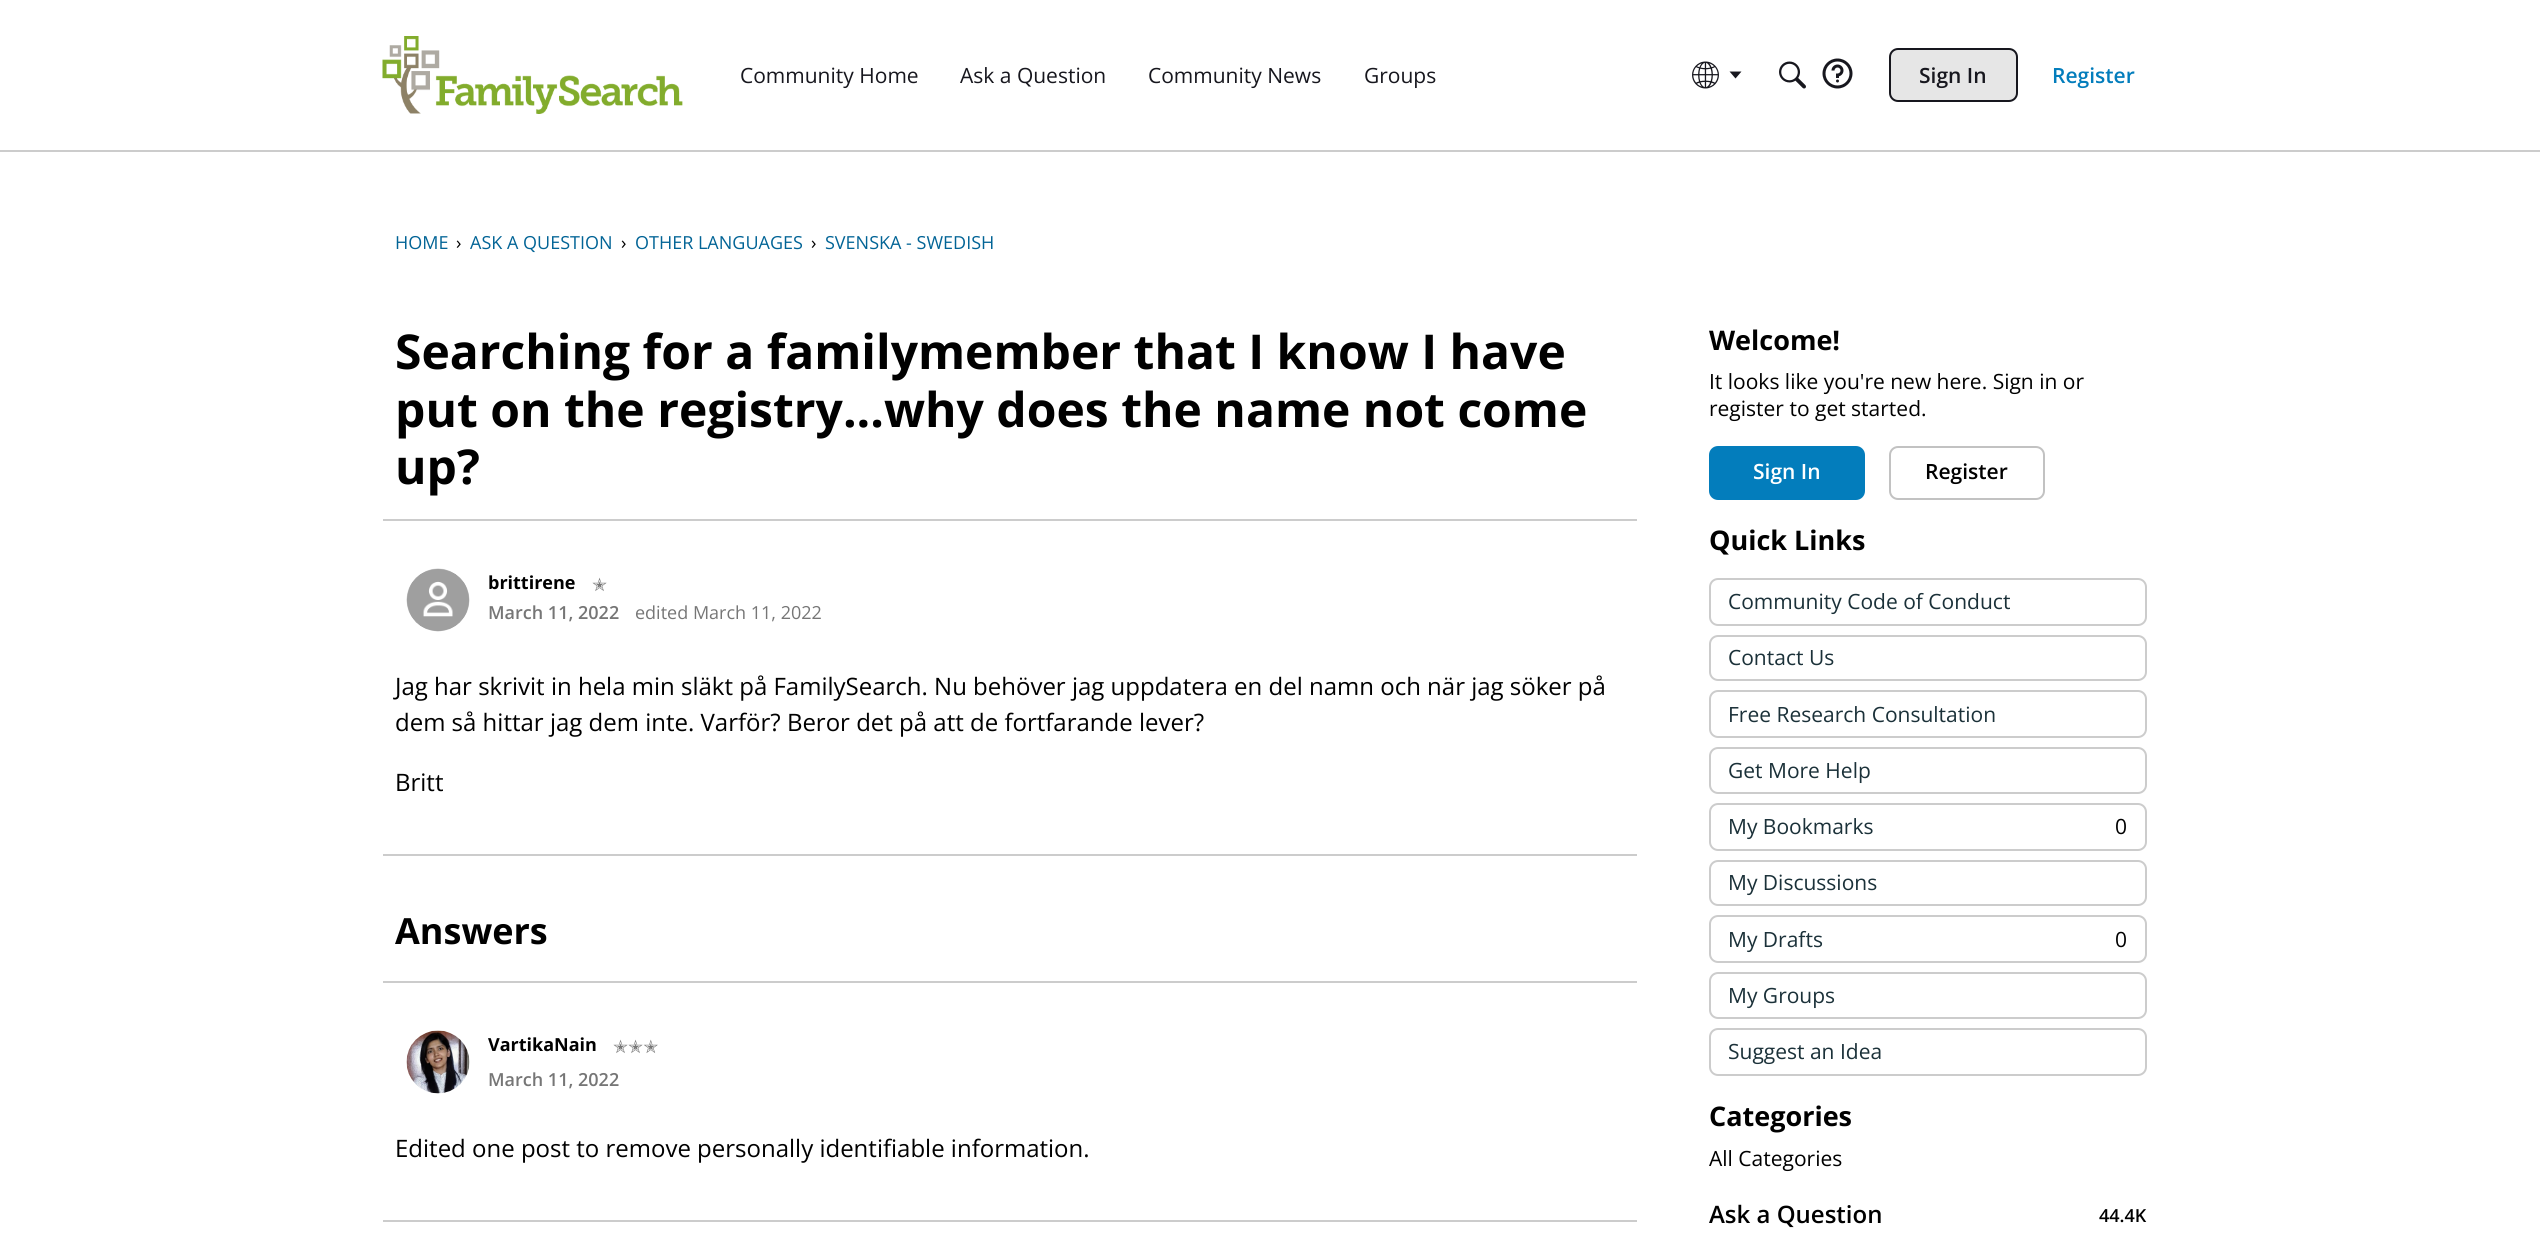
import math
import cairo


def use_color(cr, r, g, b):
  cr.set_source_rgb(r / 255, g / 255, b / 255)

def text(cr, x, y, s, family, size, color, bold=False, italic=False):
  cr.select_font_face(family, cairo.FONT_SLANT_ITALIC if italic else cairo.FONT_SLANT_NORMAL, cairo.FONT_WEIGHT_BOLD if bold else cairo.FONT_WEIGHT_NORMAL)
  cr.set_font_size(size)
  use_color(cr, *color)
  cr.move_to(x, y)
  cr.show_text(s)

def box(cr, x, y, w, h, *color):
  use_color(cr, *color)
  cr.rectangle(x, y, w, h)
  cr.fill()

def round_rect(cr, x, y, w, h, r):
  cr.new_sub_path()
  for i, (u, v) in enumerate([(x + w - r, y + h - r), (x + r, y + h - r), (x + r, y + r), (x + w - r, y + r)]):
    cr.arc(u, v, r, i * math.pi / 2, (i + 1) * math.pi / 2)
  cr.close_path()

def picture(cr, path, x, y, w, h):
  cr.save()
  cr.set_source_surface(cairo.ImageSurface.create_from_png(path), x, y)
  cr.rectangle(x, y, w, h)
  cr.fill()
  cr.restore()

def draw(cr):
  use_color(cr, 255, 255, 255)
  cr.paint()
  box(cr, 0, 150, 2540, 2, 204, 204, 204)
  picture(cr, "img_01.png", 382, 36, 301, 78)
  picture(cr, "img_02.png", 1692, 61, 27, 28)
  use_color(cr, 23, 23, 30)
  cr.new_path()
  cr.move_to(1729.5, 71.5)
  cr.line_to(1741.5, 71.5)
  cr.line_to(1735.5, 78.5)
  cr.close_path()
  cr.fill()
  picture(cr, "img_03.png", 1779, 61, 27, 28)
  picture(cr, "img_04.png", 1822, 58, 31, 31)
  use_color(cr, 230, 230, 230)
  round_rect(cr, 1890, 49, 127, 52, 8)
  cr.fill_preserve()
  use_color(cr, 23, 23, 30)
  cr.stroke()
  box(cr, 383, 519, 1254, 2, 204, 204, 204)
  picture(cr, "img_05.png", 406, 568, 64, 64)
  box(cr, 383, 854, 1254, 2, 204, 204, 204)
  box(cr, 383, 981, 1254, 2, 204, 204, 204)
  picture(cr, "img_06.png", 406, 1030, 64, 64)
  box(cr, 383, 1220, 1254, 2, 204, 204, 204)
  use_color(cr, 3, 125, 188)
  round_rect(cr, 1710, 447, 154, 52, 8)
  cr.fill_preserve()
  cr.stroke()
  round_rect(cr, 1890, 447, 154, 52, 8)
  use_color(cr, 194, 194, 194)
  cr.stroke()
  round_rect(cr, 1710, 579, 436, 46, 8)
  use_color(cr, 204, 204, 204)
  cr.stroke()
  round_rect(cr, 1710, 636, 436, 44, 8)
  cr.stroke()
  round_rect(cr, 1710, 691, 436, 46, 8)
  cr.stroke()
  round_rect(cr, 1710, 748, 436, 45, 8)
  cr.stroke()
  round_rect(cr, 1710, 804, 436, 46, 8)
  cr.stroke()
  round_rect(cr, 1710, 861, 436, 44, 8)
  cr.stroke()
  round_rect(cr, 1710, 916, 436, 46, 8)
  cr.stroke()
  round_rect(cr, 1710, 973, 436, 45, 8)
  cr.stroke()
  round_rect(cr, 1710, 1029, 436, 46, 8)
  cr.stroke()
  text(cr, 740, 83, "Community Home", "Open Sans", 21, (23, 23, 30))
  text(cr, 960, 83, "Ask a Question", "Open Sans", 21, (23, 23, 30))
  text(cr, 1148, 83, "Community News", "Open Sans", 21, (23, 23, 30))
  text(cr, 1364, 83, "Groups", "Open Sans", 21, (23, 23, 30))
  text(cr, 1919, 83, "Sign In", "Open Sans SemiBold", 21, (23, 23, 30))
  text(cr, 2052, 83, "Register", "Open Sans SemiBold", 21, (3, 125, 188))
  text(cr, 395, 249, "HOME", "Open Sans", 18, (2, 100, 150))
  text(cr, 456, 249, "›", "Open Sans", 18, (0, 0, 0))
  text(cr, 470, 249, "ASK A QUESTION", "Open Sans", 18, (2, 100, 150))
  text(cr, 621, 249, "›", "Open Sans", 18, (0, 0, 0))
  text(cr, 635, 249, "OTHER LANGUAGES", "Open Sans", 18, (2, 100, 150))
  text(cr, 811, 249, "›", "Open Sans", 18, (0, 0, 0))
  text(cr, 825, 249, "SVENSKA - SWEDISH", "Open Sans", 18, (2, 100, 150))
  text(cr, 395, 369, "Searching for a familymember that I know I have", "Open Sans", 48, (0, 0, 0), bold=True)
  text(cr, 395, 427, "put on the registry...why does the name not come", "Open Sans", 48, (0, 0, 0), bold=True)
  text(cr, 395, 484, "up?", "Open Sans", 48, (0, 0, 0), bold=True)
  text(cr, 488, 589, "brittirene", "Open Sans", 18, (0, 0, 0), bold=True)
  text(cr, 592, 591, "✭", "DejaVu Sans", 18, (118, 118, 118))
  text(cr, 488, 619, "March 11, 2022", "Open Sans SemiBold", 18, (118, 118, 118))
  text(cr, 635, 619, "edited March 11, 2022", "Open Sans", 18, (118, 118, 118))
  text(cr, 395, 695, "Jag har skrivit in hela min släkt på FamilySearch. Nu behöver jag uppdatera en del namn och när jag söker på", "Open Sans", 24, (0, 0, 0))
  text(cr, 395, 731, "dem så hittar jag dem inte. Varför? Beror det på att de fortfarande lever?", "Open Sans", 24, (0, 0, 0))
  text(cr, 395, 791, "Britt", "Open Sans", 24, (0, 0, 0))
  text(cr, 395, 944, "Answers", "Open Sans", 36, (0, 0, 0), bold=True)
  text(cr, 488, 1051, "VartikaNain", "Open Sans", 18, (0, 0, 0), bold=True)
  text(cr, 613, 1053, "✭✭✭", "DejaVu Sans", 18, (118, 118, 118))
  text(cr, 488, 1086, "March 11, 2022", "Open Sans SemiBold", 18, (118, 118, 118))
  text(cr, 395, 1157, "Edited one post to remove personally identifiable information.", "Open Sans", 24, (0, 0, 0))
  text(cr, 1709, 350, "Welcome!", "Open Sans", 27, (0, 0, 0), bold=True)
  text(cr, 1709, 389, "It looks like you're new here. Sign in or", "Open Sans", 21, (0, 0, 0))
  text(cr, 1709, 416, "register to get started.", "Open Sans", 21, (0, 0, 0))
  text(cr, 1753, 479, "Sign In", "Open Sans SemiBold", 21, (255, 255, 255))
  text(cr, 1925, 479, "Register", "Open Sans SemiBold", 21, (0, 0, 0))
  text(cr, 1709, 550, "Quick Links", "Open Sans", 27, (0, 0, 0), bold=True)
  text(cr, 1728, 609, "Community Code of Conduct", "Open Sans", 21, (27, 49, 57))
  text(cr, 1728, 665, "Contact Us", "Open Sans", 21, (27, 49, 57))
  text(cr, 1728, 722, "Free Research Consultation", "Open Sans", 21, (27, 49, 57))
  text(cr, 1728, 778, "Get More Help", "Open Sans", 21, (27, 49, 57))
  text(cr, 1728, 834, "My Bookmarks", "Open Sans", 21, (27, 49, 57))
  text(cr, 2115, 834, "0", "Open Sans", 21, (0, 0, 0))
  text(cr, 1728, 890, "My Discussions", "Open Sans", 21, (27, 49, 57))
  text(cr, 1728, 947, "My Drafts", "Open Sans", 21, (27, 49, 57))
  text(cr, 2115, 947, "0", "Open Sans", 21, (0, 0, 0))
  text(cr, 1728, 1003, "My Groups", "Open Sans", 21, (27, 49, 57))
  text(cr, 1728, 1059, "Suggest an Idea", "Open Sans", 21, (27, 49, 57))
  text(cr, 1709, 1126, "Categories", "Open Sans", 27, (0, 0, 0), bold=True)
  text(cr, 1709, 1166, "All Categories", "Open Sans", 21, (0, 0, 0))
  text(cr, 1709, 1223, "Ask a Question", "Open Sans SemiBold", 24, (0, 0, 0))
  text(cr, 2099, 1222, "44.4K", "Open Sans SemiBold", 18, (0, 0, 0))


surface = cairo.ImageSurface(cairo.FORMAT_RGB24, 2540, 1239)
cr = cairo.Context(surface)
options = cairo.FontOptions()
options.set_hint_metrics(cairo.HINT_METRICS_OFF)
options.set_hint_style(cairo.HINT_STYLE_NONE)
cr.set_font_options(options)
cr.set_miter_limit(4)
draw(cr)
surface.write_to_png("out.png")
